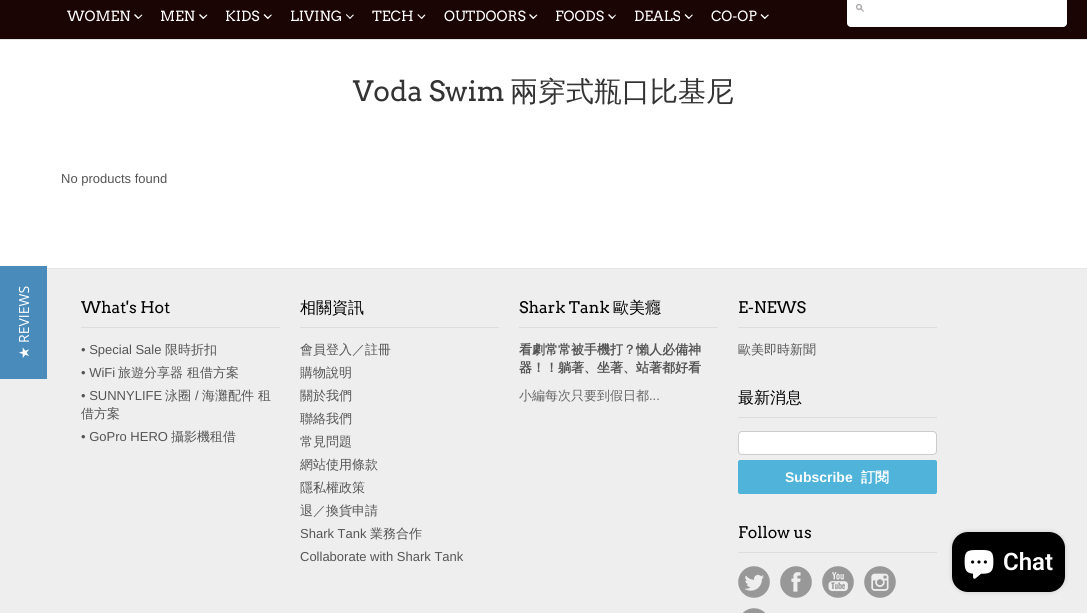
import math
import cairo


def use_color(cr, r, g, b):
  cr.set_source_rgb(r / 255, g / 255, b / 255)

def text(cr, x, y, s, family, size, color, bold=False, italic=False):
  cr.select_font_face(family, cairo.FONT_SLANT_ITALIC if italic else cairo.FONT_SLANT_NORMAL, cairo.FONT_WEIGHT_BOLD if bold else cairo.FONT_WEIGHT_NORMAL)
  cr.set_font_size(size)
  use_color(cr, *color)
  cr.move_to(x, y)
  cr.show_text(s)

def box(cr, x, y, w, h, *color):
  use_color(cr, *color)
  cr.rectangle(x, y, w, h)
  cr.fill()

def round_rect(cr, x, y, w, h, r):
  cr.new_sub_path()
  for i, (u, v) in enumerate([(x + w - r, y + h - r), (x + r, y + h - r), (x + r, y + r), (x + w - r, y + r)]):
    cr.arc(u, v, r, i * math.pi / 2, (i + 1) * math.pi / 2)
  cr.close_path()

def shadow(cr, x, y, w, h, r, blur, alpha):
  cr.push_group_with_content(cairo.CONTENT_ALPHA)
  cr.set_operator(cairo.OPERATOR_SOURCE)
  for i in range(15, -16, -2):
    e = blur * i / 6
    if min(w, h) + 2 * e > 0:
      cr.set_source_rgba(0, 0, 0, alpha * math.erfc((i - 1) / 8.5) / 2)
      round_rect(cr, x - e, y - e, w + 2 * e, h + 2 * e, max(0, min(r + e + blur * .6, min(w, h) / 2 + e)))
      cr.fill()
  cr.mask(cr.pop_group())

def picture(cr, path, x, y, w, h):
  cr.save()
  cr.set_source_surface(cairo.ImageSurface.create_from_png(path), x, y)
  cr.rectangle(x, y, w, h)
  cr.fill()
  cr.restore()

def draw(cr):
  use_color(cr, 255, 255, 255)
  cr.paint()
  box(cr, 0, 0, 1087, 39, 26, 4, 4)
  box(cr, 0, 39, 1087, 1, 229, 229, 229)
  use_color(cr, 255, 255, 255)
  cr.new_path()
  cr.move_to(141.5, 14.5)
  cr.line_to(142.5, 15)
  cr.line_to(138.5, 19)
  cr.line_to(138, 18)
  cr.close_path()
  cr.fill()
  cr.new_path()
  cr.move_to(135, 14)
  cr.line_to(139, 18)
  cr.line_to(138, 19)
  cr.line_to(134, 15)
  cr.close_path()
  cr.fill()
  cr.new_path()
  cr.move_to(206.5, 14.5)
  cr.line_to(207.5, 15)
  cr.line_to(203.5, 19)
  cr.line_to(202.5, 18)
  cr.close_path()
  cr.fill()
  cr.new_path()
  cr.move_to(200, 14)
  cr.line_to(204, 18)
  cr.line_to(203, 19)
  cr.line_to(199, 15)
  cr.close_path()
  cr.fill()
  cr.new_path()
  cr.move_to(271, 14.5)
  cr.line_to(272, 15)
  cr.line_to(268, 19)
  cr.line_to(267, 18)
  cr.close_path()
  cr.fill()
  cr.new_path()
  cr.move_to(264.5, 14)
  cr.line_to(268.5, 18)
  cr.line_to(267.5, 19)
  cr.line_to(263.5, 15)
  cr.close_path()
  cr.fill()
  cr.new_path()
  cr.move_to(353, 14.5)
  cr.line_to(354, 15)
  cr.line_to(350, 19)
  cr.line_to(349.5, 18)
  cr.close_path()
  cr.fill()
  cr.new_path()
  cr.move_to(346.5, 14)
  cr.line_to(350.5, 18)
  cr.line_to(350, 19)
  cr.line_to(346, 15)
  cr.close_path()
  cr.fill()
  cr.new_path()
  cr.move_to(424.5, 14.5)
  cr.line_to(425.5, 15)
  cr.line_to(422, 19)
  cr.line_to(421, 18)
  cr.close_path()
  cr.fill()
  cr.new_path()
  cr.move_to(418, 14)
  cr.line_to(422, 18)
  cr.line_to(421.5, 19)
  cr.line_to(417.5, 15)
  cr.close_path()
  cr.fill()
  cr.new_path()
  cr.move_to(536.5, 14.5)
  cr.line_to(537.5, 15)
  cr.line_to(533.5, 19)
  cr.line_to(532.5, 18)
  cr.close_path()
  cr.fill()
  cr.new_path()
  cr.move_to(530, 14)
  cr.line_to(534, 18)
  cr.line_to(533, 19)
  cr.line_to(529, 15)
  cr.close_path()
  cr.fill()
  cr.new_path()
  cr.move_to(615.5, 14.5)
  cr.line_to(616, 15)
  cr.line_to(612.5, 19)
  cr.line_to(611.5, 18)
  cr.close_path()
  cr.fill()
  cr.new_path()
  cr.move_to(609, 14)
  cr.line_to(613, 18)
  cr.line_to(612, 19)
  cr.line_to(608, 15)
  cr.close_path()
  cr.fill()
  cr.new_path()
  cr.move_to(692, 14.5)
  cr.line_to(693, 15)
  cr.line_to(689, 19)
  cr.line_to(688.5, 18)
  cr.close_path()
  cr.fill()
  cr.new_path()
  cr.move_to(685.5, 14)
  cr.line_to(689.5, 18)
  cr.line_to(688.5, 19)
  cr.line_to(684.5, 15)
  cr.close_path()
  cr.fill()
  cr.new_path()
  cr.move_to(768, 14.5)
  cr.line_to(769, 15)
  cr.line_to(765, 19)
  cr.line_to(764, 18)
  cr.close_path()
  cr.fill()
  cr.new_path()
  cr.move_to(761.5, 14)
  cr.line_to(765.5, 18)
  cr.line_to(764.5, 19)
  cr.line_to(760.5, 15)
  cr.close_path()
  cr.fill()
  round_rect(cr, 847, -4, 220, 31, 4)
  cr.fill()
  picture(cr, "img_01.png", 856, 4, 8, 8)
  box(cr, 0, 269, 1087, 344, 238, 238, 238)
  box(cr, 0, 266, 47, 113, 73, 140, 188)
  box(cr, 47, 268, 1040, 1, 229, 229, 229)
  box(cr, 81, 327, 199, 1, 221, 221, 221)
  box(cr, 300, 327, 199, 1, 221, 221, 221)
  box(cr, 519, 327, 199, 1, 221, 221, 221)
  box(cr, 738, 327, 199, 1, 221, 221, 221)
  box(cr, 738, 417, 199, 1, 221, 221, 221)
  use_color(cr, 255, 255, 255)
  round_rect(cr, 738.5, 431.5, 198, 23, 3.5)
  cr.fill_preserve()
  use_color(cr, 204, 204, 204)
  cr.set_line_width(1)
  cr.stroke()
  use_color(cr, 80, 179, 218)
  round_rect(cr, 738, 460, 199, 34, 2)
  cr.fill()
  box(cr, 738, 552, 199, 1, 221, 221, 221)
  picture(cr, "img_02.png", 738, 566, 32, 32)
  picture(cr, "img_03.png", 780, 566, 32, 32)
  picture(cr, "img_04.png", 822, 566, 32, 32)
  picture(cr, "img_05.png", 864, 566, 32, 32)
  picture(cr, "img_06.png", 743, 608, 22, 5)
  use_color(cr, 0, 0, 0)
  shadow(cr, 952, 532, 113, 60, 16, 2.5, 0.15)
  use_color(cr, 0, 0, 0)
  round_rect(cr, 952, 532, 113, 60, 16)
  cr.fill()
  picture(cr, "img_07.png", 964, 550, 30, 29)
  text(cr, 67, 21, "WOMEN", "Arvo", 14, (255, 255, 255))
  text(cr, 160, 21, "MEN", "Arvo", 14, (255, 255, 255))
  text(cr, 225, 21, "KIDS", "Arvo", 14, (255, 255, 255))
  text(cr, 290, 21, "LIVING", "Arvo", 14, (255, 255, 255))
  text(cr, 372, 21, "TECH", "Arvo", 14, (255, 255, 255))
  text(cr, 444, 21, "OUTDOORS", "Arvo", 14, (255, 255, 255))
  text(cr, 555, 21, "FOODS", "Arvo", 14, (255, 255, 255))
  text(cr, 634, 21, "DEALS", "Arvo", 14, (255, 255, 255))
  text(cr, 711, 21, "CO-OP", "Arvo", 14, (255, 255, 255))
  text(cr, 353, 101, "Voda Swim", "Arvo", 28, (51, 51, 51))
  text(cr, 510, 101, "兩穿式瓶口比基尼", "WenQuanYi Zen Hei Medium", 28, (51, 51, 51))
  text(cr, 61, 183, "No products found", "Liberation Sans", 13, (85, 85, 85))
  cr.save()
  cr.translate(29, 343)
  cr.rotate(-90 * math.pi / 180)
  text(cr, 0, 0, "REVIEWS", "Open Sans", 14, (255, 255, 255))
  cr.restore()
  cr.save()
  cr.translate(29, 359)
  cr.rotate(-90 * math.pi / 180)
  text(cr, 0, 0, "★", "DejaVu Sans", 14, (255, 255, 255))
  cr.restore()
  text(cr, 81, 313, "What's Hot", "Arvo", 16, (0, 0, 0))
  text(cr, 81, 354, "• Special Sale", "Liberation Sans", 13, (85, 85, 85))
  text(cr, 165, 354, "限時折扣", "WenQuanYi Zen Hei Medium", 13, (85, 85, 85))
  text(cr, 81, 377, "• WiFi", "Liberation Sans", 13, (85, 85, 85))
  text(cr, 118, 377, "旅遊分享器 租借方案", "WenQuanYi Zen Hei Medium", 13, (85, 85, 85))
  text(cr, 81, 400, "• SUNNYLIFE", "Liberation Sans", 13, (85, 85, 85))
  text(cr, 165, 400, "泳圈", "WenQuanYi Zen Hei Medium", 13, (85, 85, 85))
  text(cr, 195, 400, "/", "Liberation Sans", 13, (85, 85, 85))
  text(cr, 202, 400, "海灘配件 租", "WenQuanYi Zen Hei Medium", 13, (85, 85, 85))
  text(cr, 81, 418, "借方案", "WenQuanYi Zen Hei Medium", 13, (85, 85, 85))
  text(cr, 81, 441, "• GoPro HERO", "Liberation Sans", 13, (85, 85, 85))
  text(cr, 171, 441, "攝影機租借", "WenQuanYi Zen Hei Medium", 13, (85, 85, 85))
  text(cr, 300, 313, "相關資訊", "WenQuanYi Zen Hei Medium", 16, (0, 0, 0))
  text(cr, 300, 354, "會員登入／註冊", "WenQuanYi Zen Hei Medium", 13, (85, 85, 85))
  text(cr, 300, 377, "購物說明", "WenQuanYi Zen Hei Medium", 13, (85, 85, 85))
  text(cr, 300, 400, "關於我們", "WenQuanYi Zen Hei Medium", 13, (85, 85, 85))
  text(cr, 300, 423, "聯絡我們", "WenQuanYi Zen Hei Medium", 13, (85, 85, 85))
  text(cr, 300, 446, "常見問題", "WenQuanYi Zen Hei Medium", 13, (85, 85, 85))
  text(cr, 300, 469, "網站使用條款", "WenQuanYi Zen Hei Medium", 13, (85, 85, 85))
  text(cr, 300, 492, "隱私權政策", "WenQuanYi Zen Hei Medium", 13, (85, 85, 85))
  text(cr, 300, 515, "退／換貨申請", "WenQuanYi Zen Hei Medium", 13, (85, 85, 85))
  text(cr, 300, 538, "Shark Tank", "Liberation Sans", 13, (85, 85, 85))
  text(cr, 370, 538, "業務合作", "WenQuanYi Zen Hei Medium", 13, (85, 85, 85))
  text(cr, 300, 561, "Collaborate with Shark Tank", "Liberation Sans", 13, (85, 85, 85))
  text(cr, 519, 313, "Shark Tank", "Arvo", 16, (0, 0, 0))
  text(cr, 613, 313, "歐美癮", "WenQuanYi Zen Hei Medium", 16, (0, 0, 0))
  text(cr, 519, 354, "看劇常常被手機打？懶人必備神", "WenQuanYi Zen Hei", 13, (85, 85, 85), bold=True)
  text(cr, 519, 372, "器！！躺著、坐著、站著都好看", "WenQuanYi Zen Hei", 13, (85, 85, 85), bold=True)
  text(cr, 519, 400, "小編每次只要到假日都", "WenQuanYi Zen Hei Medium", 13, (102, 102, 102))
  text(cr, 649, 400, "...", "Liberation Sans", 13, (102, 102, 102))
  text(cr, 738, 313, "E-NEWS", "Arvo", 16, (0, 0, 0))
  text(cr, 738, 354, "歐美即時新聞", "WenQuanYi Zen Hei Medium", 13, (85, 85, 85))
  text(cr, 738, 403, "最新消息", "WenQuanYi Zen Hei Medium", 16, (0, 0, 0))
  text(cr, 785, 482, "Subscribe", "Liberation Sans", 14, (255, 255, 255), bold=True)
  text(cr, 861, 482, "訂閱", "WenQuanYi Zen Hei", 14, (255, 255, 255), bold=True)
  text(cr, 738, 538, "Follow us", "Arvo", 16, (0, 0, 0))
  text(cr, 1003, 570, "Chat", "Roboto SemiBold", 24, (255, 255, 255))


surface = cairo.ImageSurface(cairo.FORMAT_RGB24, 1087, 613)
cr = cairo.Context(surface)
options = cairo.FontOptions()
options.set_hint_metrics(cairo.HINT_METRICS_OFF)
options.set_hint_style(cairo.HINT_STYLE_NONE)
cr.set_font_options(options)
cr.set_miter_limit(4)
draw(cr)
surface.write_to_png("out.png")
